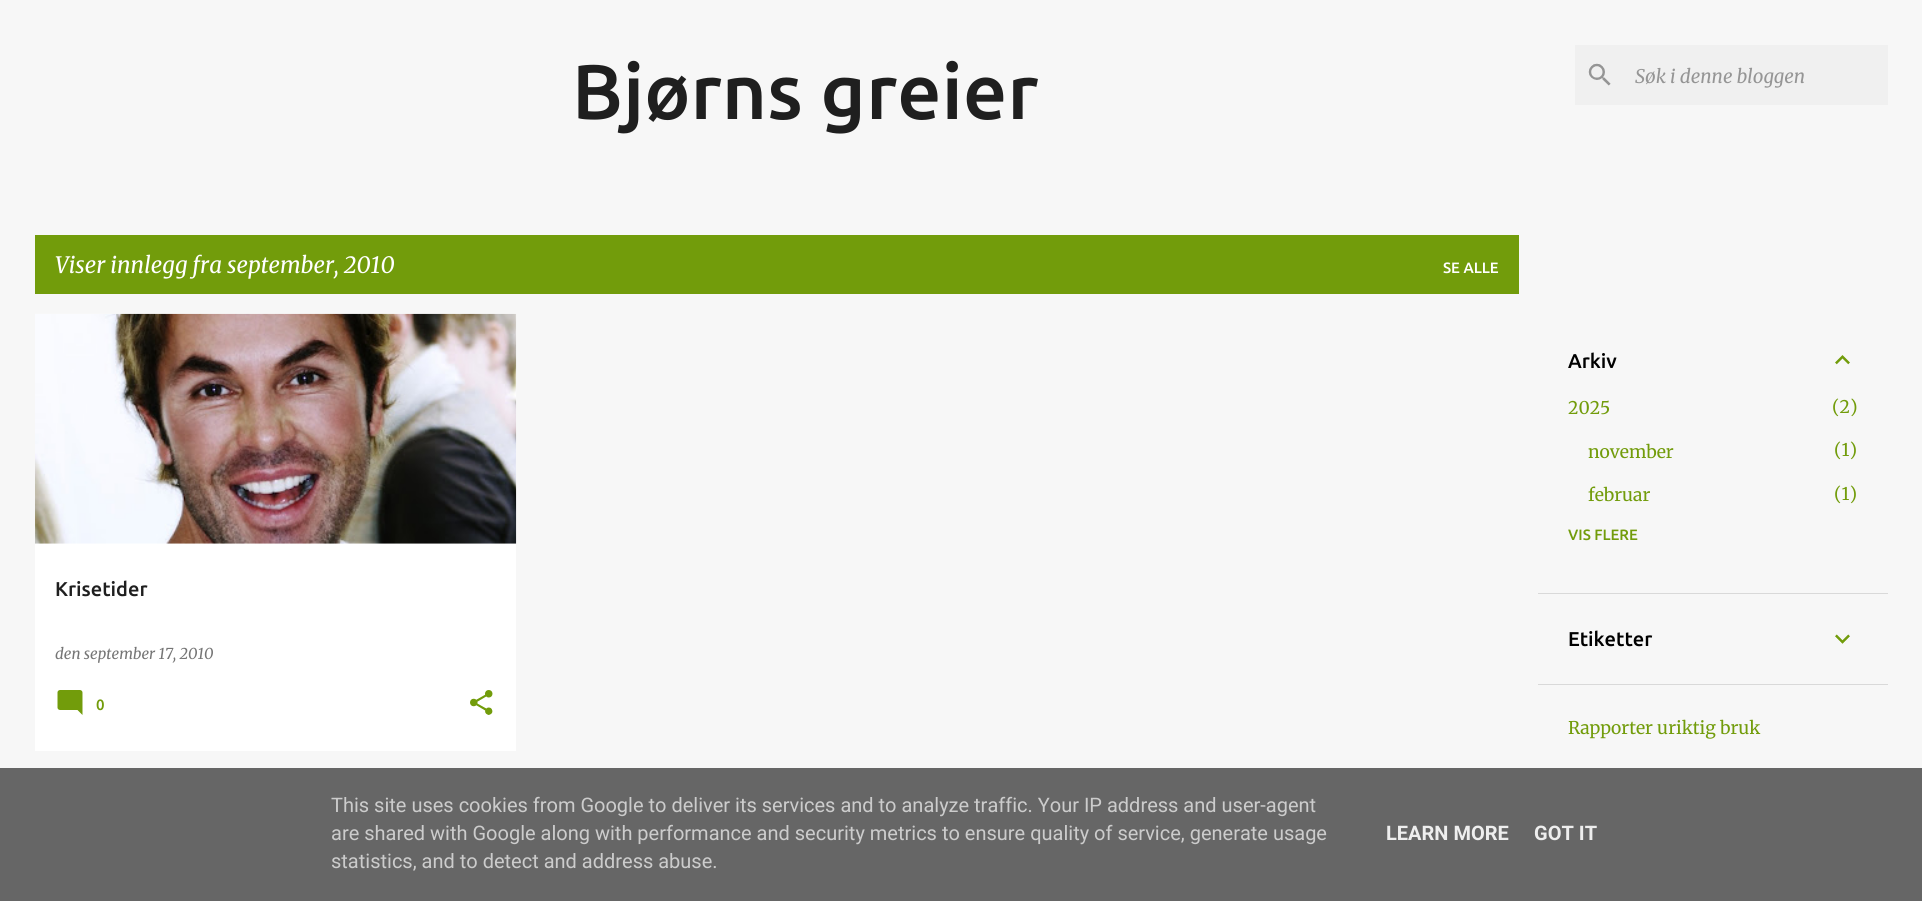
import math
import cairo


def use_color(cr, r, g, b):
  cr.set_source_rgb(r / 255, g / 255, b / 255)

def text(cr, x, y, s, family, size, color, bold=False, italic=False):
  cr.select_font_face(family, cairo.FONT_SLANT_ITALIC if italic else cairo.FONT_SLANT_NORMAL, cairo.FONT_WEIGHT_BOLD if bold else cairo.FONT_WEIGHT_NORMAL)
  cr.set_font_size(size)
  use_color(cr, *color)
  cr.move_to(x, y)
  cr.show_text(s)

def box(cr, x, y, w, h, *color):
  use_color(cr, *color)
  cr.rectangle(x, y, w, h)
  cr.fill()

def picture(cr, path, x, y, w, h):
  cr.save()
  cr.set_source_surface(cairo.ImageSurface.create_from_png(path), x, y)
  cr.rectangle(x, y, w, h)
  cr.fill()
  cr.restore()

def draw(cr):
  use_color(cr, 247, 247, 247)
  cr.paint()
  box(cr, 1575, 45, 313, 60, 240, 240, 240)
  picture(cr, "img_01.png", 1588, 63, 23, 23)
  box(cr, 35, 235, 1484, 59, 114, 156, 11)
  box(cr, 35, 543, 481, 208, 255, 255, 255)
  picture(cr, "img_02.png", 35, 313, 482, 231)
  picture(cr, "img_03.png", 57, 690, 26, 25)
  picture(cr, "img_04.png", 470, 690, 23, 25)
  picture(cr, "img_05.png", 1835, 355, 15, 10)
  box(cr, 1538, 593, 350, 1, 217, 217, 217)
  picture(cr, "img_06.png", 1835, 634, 15, 10)
  box(cr, 1538, 684, 350, 1, 217, 217, 217)
  box(cr, 0, 768, 1922, 133, 102, 102, 102)
  text(cr, 572, 119, "Bjørns greier", "Ubuntu Medium", 77.5, (31, 31, 31))
  text(cr, 1635, 83, "Søk i denne bloggen", "Merriweather", 18.75, (149, 149, 149), italic=True)
  text(cr, 55, 273, "Viser innlegg fra september, 2010", "Merriweather", 22.5, (255, 255, 255), italic=True)
  text(cr, 1443, 273, "SE ALLE", "Ubuntu Medium", 15, (255, 255, 255))
  text(cr, 55, 596, "Krisetider", "Ubuntu Medium", 20, (31, 31, 31))
  text(cr, 55, 659, "den september 17, 2010", "Merriweather", 15, (117, 117, 117), italic=True)
  text(cr, 96, 710, "0", "Ubuntu Medium", 15, (114, 156, 11))
  text(cr, 1568, 368, "Arkiv", "Ubuntu Medium", 20, (0, 0, 0))
  text(cr, 1568, 414, "2025", "Merriweather Light", 17.5, (114, 156, 11))
  text(cr, 1832, 413, "(2)", "Merriweather Light", 17.5, (114, 156, 11))
  text(cr, 1588, 458, "november", "Merriweather Light", 17.5, (114, 156, 11))
  text(cr, 1834, 456, "(1)", "Merriweather Light", 17.5, (114, 156, 11))
  text(cr, 1588, 501, "februar", "Merriweather Light", 17.5, (114, 156, 11))
  text(cr, 1834, 500, "(1)", "Merriweather Light", 17.5, (114, 156, 11))
  text(cr, 1568, 540, "VIS FLERE", "Ubuntu Medium", 15, (114, 156, 11))
  text(cr, 1568, 646, "Etiketter", "Ubuntu Medium", 20, (0, 0, 0))
  text(cr, 1568, 734, "Rapporter uriktig bruk", "Merriweather Light", 17.5, (114, 156, 11))
  text(cr, 331, 812, "This site uses cookies from Google to deliver its services and to analyze traffic. Your IP address and user-agent", "Roboto", 20, (204, 204, 204))
  text(cr, 331, 840, "are shared with Google along with performance and security metrics to ensure quality of service, generate usage", "Roboto", 20, (204, 204, 204))
  text(cr, 331, 868, "statistics, and to detect and address abuse.", "Roboto", 20, (204, 204, 204))
  text(cr, 1386, 840, "LEARN MORE", "Roboto", 20, (238, 238, 238), bold=True)
  text(cr, 1534, 840, "GOT IT", "Roboto", 20, (238, 238, 238), bold=True)


surface = cairo.ImageSurface(cairo.FORMAT_RGB24, 1922, 901)
cr = cairo.Context(surface)
options = cairo.FontOptions()
options.set_hint_metrics(cairo.HINT_METRICS_OFF)
options.set_hint_style(cairo.HINT_STYLE_NONE)
cr.set_font_options(options)
cr.set_miter_limit(4)
draw(cr)
surface.write_to_png("out.png")
